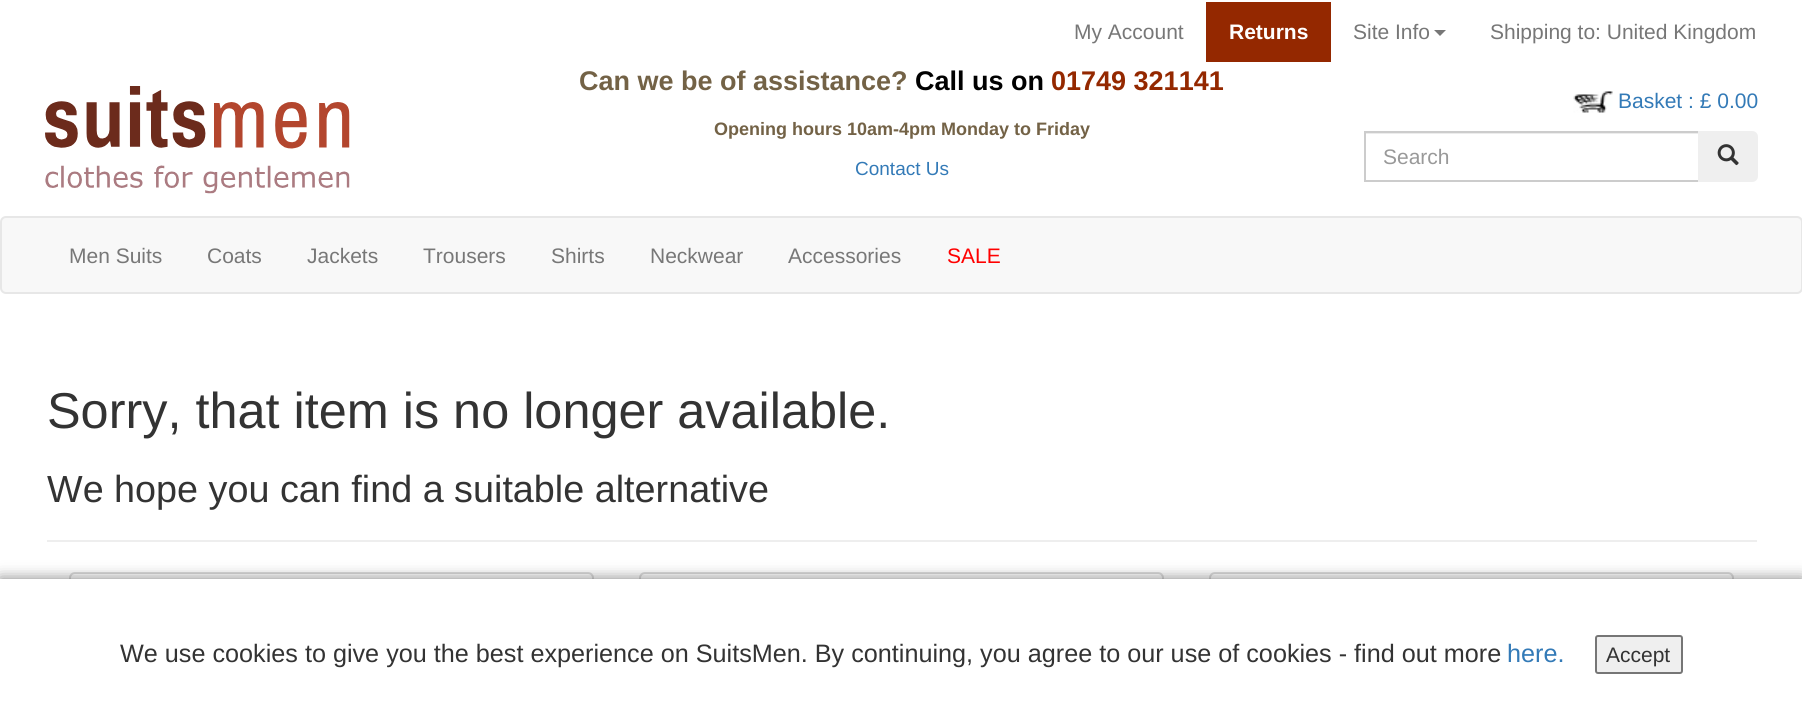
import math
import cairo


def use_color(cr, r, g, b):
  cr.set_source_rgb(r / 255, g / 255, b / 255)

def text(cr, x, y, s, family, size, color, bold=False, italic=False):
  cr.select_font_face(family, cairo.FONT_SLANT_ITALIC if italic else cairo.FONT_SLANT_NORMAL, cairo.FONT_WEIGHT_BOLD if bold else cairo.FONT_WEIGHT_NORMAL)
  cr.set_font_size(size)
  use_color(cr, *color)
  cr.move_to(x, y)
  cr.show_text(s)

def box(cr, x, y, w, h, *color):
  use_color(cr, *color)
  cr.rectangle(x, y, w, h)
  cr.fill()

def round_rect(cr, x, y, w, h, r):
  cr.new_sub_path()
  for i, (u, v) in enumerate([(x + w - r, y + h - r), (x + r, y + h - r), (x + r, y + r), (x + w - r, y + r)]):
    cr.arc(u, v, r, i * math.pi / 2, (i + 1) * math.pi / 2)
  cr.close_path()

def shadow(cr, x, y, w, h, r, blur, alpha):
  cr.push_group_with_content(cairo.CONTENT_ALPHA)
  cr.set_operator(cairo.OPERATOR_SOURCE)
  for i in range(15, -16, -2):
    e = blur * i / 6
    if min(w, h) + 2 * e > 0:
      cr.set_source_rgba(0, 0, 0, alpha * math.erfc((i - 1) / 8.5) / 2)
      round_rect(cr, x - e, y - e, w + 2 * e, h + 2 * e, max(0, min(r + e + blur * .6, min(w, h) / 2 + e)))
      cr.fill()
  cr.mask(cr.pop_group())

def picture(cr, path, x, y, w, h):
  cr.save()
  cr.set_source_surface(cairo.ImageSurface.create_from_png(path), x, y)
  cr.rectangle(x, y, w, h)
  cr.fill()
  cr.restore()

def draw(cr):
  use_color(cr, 255, 255, 255)
  cr.paint()
  box(cr, 1206, 2, 125, 60, 148, 40, 0)
  use_color(cr, 119, 119, 119)
  cr.new_path()
  cr.move_to(1434, 30)
  cr.line_to(1446, 30)
  cr.line_to(1440, 36)
  cr.close_path()
  cr.fill()
  picture(cr, "img_01.png", 45, 86, 305, 108)
  picture(cr, "img_02.png", 1573, 91, 40, 22)
  box(cr, 1365, 133, 333, 1, 236, 236, 236)
  cr.rectangle(1365, 132, 334, 49)
  use_color(cr, 204, 204, 204)
  cr.stroke()
  use_color(cr, 239, 239, 239)
  cr.new_path()
  cr.move_to(1698, 131)
  cr.line_to(1752, 131)
  cr.curve_to(1755.5, 131, 1758, 133.5, 1758, 137)
  cr.line_to(1758, 176)
  cr.curve_to(1758, 179.5, 1755.5, 182, 1752, 182)
  cr.line_to(1698, 182)
  cr.close_path()
  cr.fill()
  picture(cr, "img_03.png", 1717, 144, 22, 22)
  use_color(cr, 248, 248, 248)
  round_rect(cr, 1, 217, 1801, 76, 5)
  cr.fill_preserve()
  use_color(cr, 231, 231, 231)
  cr.stroke()
  box(cr, 47, 540, 1710, 2, 238, 238, 238)
  round_rect(cr, 70, 573, 523, 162, 5)
  use_color(cr, 221, 221, 221)
  cr.stroke()
  round_rect(cr, 640, 573, 523, 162, 5)
  cr.stroke()
  round_rect(cr, 1210, 573, 523, 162, 5)
  cr.stroke()
  use_color(cr, 0, 0, 0)
  shadow(cr, 0, 579, 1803, 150, 0, 7.5, 0.5)
  box(cr, 0, 579, 1802, 149, 255, 255, 255)
  use_color(cr, 239, 239, 239)
  round_rect(cr, 1596, 636, 86, 37, 2)
  cr.fill_preserve()
  use_color(cr, 118, 118, 118)
  cr.stroke()
  text(cr, 1074, 39, "My Account", "Liberation Sans", 21, (119, 119, 119))
  text(cr, 1229, 39, "Returns", "Liberation Sans", 21, (255, 255, 255), bold=True)
  text(cr, 1353, 39, "Site Info", "Liberation Sans", 21, (119, 119, 119))
  text(cr, 1490, 39, "Shipping to: United Kingdom", "Liberation Sans", 21, (119, 119, 119))
  text(cr, 579, 90, "Can we be of assistance?", "Liberation Sans", 27, (115, 98, 70), bold=True)
  text(cr, 915, 90, "Call us on", "Liberation Sans", 27, (0, 0, 0), bold=True)
  text(cr, 1051, 90, "01749 321141", "Liberation Sans", 27, (148, 40, 0), bold=True)
  text(cr, 714, 135, "Opening hours 10am-4pm Monday to Friday", "Liberation Sans", 18, (115, 98, 70), bold=True)
  text(cr, 855, 175, "Contact Us", "Liberation Sans", 19, (51, 122, 183))
  text(cr, 1618, 108, "Basket : £ 0.00", "Liberation Sans", 21, (51, 122, 183))
  text(cr, 1383, 164, "Search", "Liberation Sans", 21, (153, 153, 153))
  text(cr, 69, 263, "Men Suits", "Liberation Sans", 21, (119, 119, 119))
  text(cr, 207, 263, "Coats", "Liberation Sans", 21, (119, 119, 119))
  text(cr, 307, 263, "Jackets", "Liberation Sans", 21, (119, 119, 119))
  text(cr, 423, 263, "Trousers", "Liberation Sans", 21, (119, 119, 119))
  text(cr, 551, 263, "Shirts", "Liberation Sans", 21, (119, 119, 119))
  text(cr, 650, 263, "Neckwear", "Liberation Sans", 21, (119, 119, 119))
  text(cr, 788, 263, "Accessories", "Liberation Sans", 21, (119, 119, 119))
  text(cr, 947, 263, "SALE", "Liberation Sans", 21, (255, 0, 0))
  text(cr, 47, 428, "Sorry, that item is no longer available.", "Liberation Sans", 50.4, (51, 51, 51))
  text(cr, 47, 502, "We hope you can find a suitable alternative", "Liberation Sans", 37.75, (51, 51, 51))
  text(cr, 120, 662, "We use cookies to give you the best experience on SuitsMen. By continuing, you agree to our use of cookies - find out more", "Liberation Sans", 25.2, (51, 51, 51))
  text(cr, 1507, 662, "here.", "Liberation Sans", 25.2, (51, 122, 183))
  text(cr, 1606, 662, "Accept", "Liberation Sans", 21, (51, 51, 51))


surface = cairo.ImageSurface(cairo.FORMAT_RGB24, 1802, 728)
cr = cairo.Context(surface)
options = cairo.FontOptions()
options.set_hint_metrics(cairo.HINT_METRICS_OFF)
options.set_hint_style(cairo.HINT_STYLE_NONE)
cr.set_font_options(options)
cr.set_miter_limit(4)
draw(cr)
surface.write_to_png("out.png")
